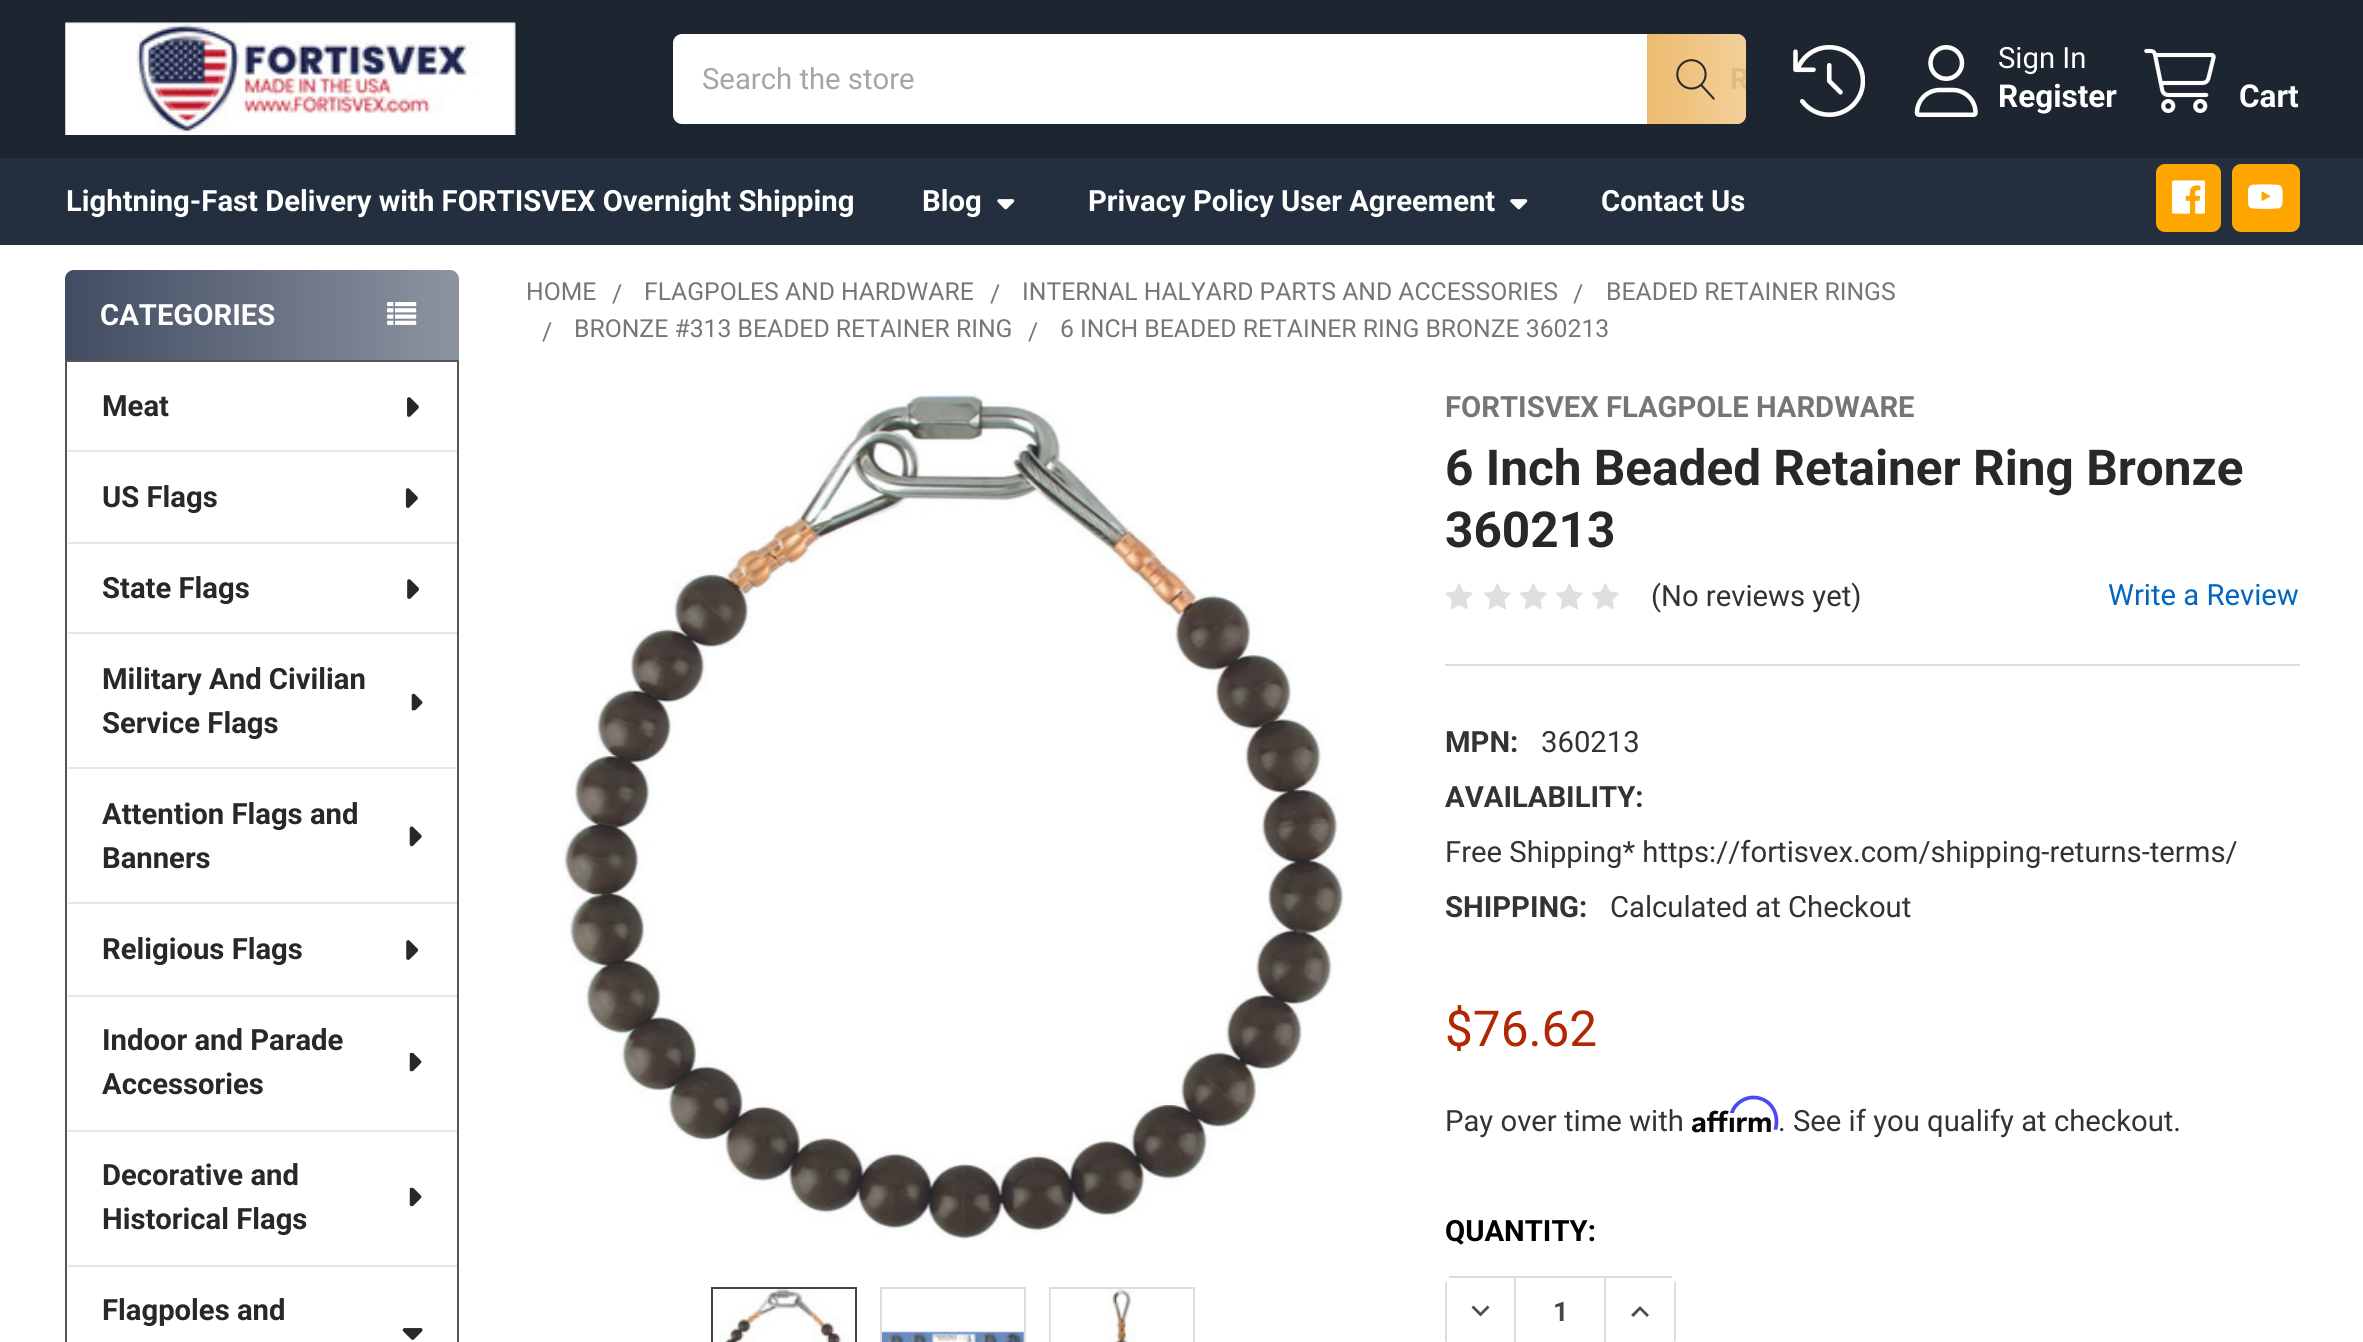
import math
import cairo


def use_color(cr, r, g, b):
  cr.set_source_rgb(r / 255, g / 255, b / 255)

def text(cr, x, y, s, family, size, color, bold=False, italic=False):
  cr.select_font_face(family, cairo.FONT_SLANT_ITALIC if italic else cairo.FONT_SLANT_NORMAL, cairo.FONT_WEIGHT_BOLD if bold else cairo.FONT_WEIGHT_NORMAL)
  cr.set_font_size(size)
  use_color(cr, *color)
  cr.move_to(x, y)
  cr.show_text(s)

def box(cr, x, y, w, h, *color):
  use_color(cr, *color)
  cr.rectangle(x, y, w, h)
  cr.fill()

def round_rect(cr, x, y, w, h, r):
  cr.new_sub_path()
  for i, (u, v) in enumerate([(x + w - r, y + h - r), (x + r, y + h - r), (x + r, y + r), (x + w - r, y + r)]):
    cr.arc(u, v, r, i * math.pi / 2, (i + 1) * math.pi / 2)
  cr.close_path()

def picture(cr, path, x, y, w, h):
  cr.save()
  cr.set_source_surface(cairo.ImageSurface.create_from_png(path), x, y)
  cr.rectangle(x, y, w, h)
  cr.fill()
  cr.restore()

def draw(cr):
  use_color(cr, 255, 255, 255)
  cr.paint()
  box(cr, 0, 0, 2363, 158, 28, 37, 48)
  picture(cr, "img_01.png", 65, 22, 451, 113)
  use_color(cr, 255, 255, 255)
  round_rect(cr, 673, 34, 1073, 90, 9)
  cr.fill()
  gradient = cairo.LinearGradient(1647, 79, 1746, 79)
  gradient.add_color_stop_rgba(0, 0.929, 0.733, 0.431, 1)
  gradient.add_color_stop_rgba(1, 0.929, 0.733, 0.431, 0.7)
  cr.set_source(gradient)
  cr.new_path()
  cr.move_to(1647, 34)
  cr.line_to(1737, 34)
  cr.curve_to(1742, 34, 1746, 38, 1746, 43)
  cr.line_to(1746, 115)
  cr.curve_to(1746, 120, 1742, 124, 1737, 124)
  cr.line_to(1647, 124)
  cr.close_path()
  cr.fill()
  picture(cr, "img_02.png", 1676, 59, 39, 41)
  picture(cr, "img_03.png", 1793, 45, 72, 72)
  picture(cr, "img_04.png", 1914, 45, 64, 72)
  picture(cr, "img_05.png", 2144, 48, 72, 66)
  box(cr, 0, 158, 2363, 87, 35, 47, 62)
  picture(cr, "img_06.png", 997, 199, 18, 11)
  picture(cr, "img_06.png", 1510, 199, 18, 11)
  use_color(cr, 255, 165, 0)
  round_rect(cr, 2156, 164, 65, 68, 9)
  cr.fill()
  picture(cr, "img_07.png", 2172, 180, 33, 34)
  round_rect(cr, 2232, 164, 68, 68, 9)
  cr.fill()
  picture(cr, "img_08.png", 2248, 184, 35, 25)
  gradient = cairo.LinearGradient(65, 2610, 459, 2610)
  gradient.add_color_stop_rgba(0, 0.255, 0.298, 0.384, 1)
  gradient.add_color_stop_rgba(1, 0.553, 0.58, 0.631, 1)
  cr.set_source(gradient)
  round_rect(cr, 65, 270, 394, 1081, 9)
  cr.fill()
  picture(cr, "img_09.png", 387, 302, 30, 23)
  use_color(cr, 255, 255, 255)
  cr.rectangle(66, 361, 392, 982)
  cr.fill_preserve()
  use_color(cr, 86, 86, 86)
  cr.stroke()
  picture(cr, "img_10.png", 407, 397, 12, 20)
  box(cr, 68, 450, 389, 2, 230, 230, 230)
  picture(cr, "img_11.png", 405, 488, 13, 20)
  box(cr, 68, 542, 389, 2, 230, 230, 230)
  picture(cr, "img_12.png", 407, 579, 12, 20)
  box(cr, 68, 632, 389, 2, 230, 230, 230)
  picture(cr, "img_13.png", 411, 693, 12, 18)
  box(cr, 68, 767, 389, 2, 230, 230, 230)
  picture(cr, "img_14.png", 409, 826, 13, 21)
  box(cr, 68, 902, 389, 2, 230, 230, 230)
  picture(cr, "img_15.png", 406, 940, 13, 20)
  box(cr, 68, 995, 389, 2, 230, 230, 230)
  picture(cr, "img_16.png", 409, 1052, 13, 20)
  box(cr, 68, 1130, 389, 2, 230, 230, 230)
  picture(cr, "img_17.png", 409, 1187, 13, 20)
  box(cr, 68, 1265, 389, 2, 230, 230, 230)
  picture(cr, "img_18.png", 402, 1328, 21, 12)
  picture(cr, "img_19.png", 562, 392, 782, 848)
  cr.rectangle(712, 1288, 144, 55)
  use_color(cr, 69, 69, 69)
  cr.stroke()
  picture(cr, "img_20.png", 719, 1289, 134, 53)
  cr.rectangle(881, 1288, 144, 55)
  use_color(cr, 220, 220, 220)
  cr.stroke()
  picture(cr, "img_21.png", 882, 1331, 142, 11)
  cr.rectangle(1050, 1288, 144, 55)
  cr.stroke()
  picture(cr, "img_22.png", 1050, 1289, 86, 53)
  picture(cr, "img_23.png", 1445, 583, 28, 26)
  picture(cr, "img_24.png", 1484, 583, 27, 26)
  picture(cr, "img_24.png", 1520, 583, 27, 26)
  picture(cr, "img_24.png", 1556, 583, 27, 26)
  picture(cr, "img_24.png", 1592, 583, 27, 26)
  box(cr, 1445, 664, 855, 2, 220, 220, 220)
  picture(cr, "img_26.png", 1692, 1110, 79, 23)
  picture(cr, "img_25.png", 1729, 1095, 50, 35)
  box(cr, 1449, 1276, 223, 2, 220, 220, 220)
  box(cr, 1514, 1278, 2, 64, 220, 220, 220)
  cr.new_path()
  cr.move_to(1445, 1283)
  cr.line_to(1447, 1280)
  cr.line_to(1447, 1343)
  cr.line_to(1445, 1341)
  cr.close_path()
  cr.fill()
  use_color(cr, 79, 79, 79)
  cr.new_path()
  cr.move_to(1473.5, 1305.5)
  cr.line_to(1480.5, 1312.5)
  cr.line_to(1487.5, 1305.5)
  cr.line_to(1489.5, 1307.5)
  cr.line_to(1480.5, 1316.5)
  cr.line_to(1471.5, 1307.5)
  cr.close_path()
  cr.fill()
  use_color(cr, 220, 220, 220)
  cr.new_path()
  cr.move_to(1676, 1340)
  cr.line_to(1674, 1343)
  cr.line_to(1674, 1280)
  cr.line_to(1676, 1283)
  cr.close_path()
  cr.fill()
  box(cr, 1604, 1278, 2, 64, 220, 220, 220)
  use_color(cr, 79, 79, 79)
  cr.new_path()
  cr.move_to(1633.5, 1317)
  cr.line_to(1640, 1310)
  cr.line_to(1647, 1317)
  cr.line_to(1649, 1315)
  cr.line_to(1640, 1306)
  cr.line_to(1631, 1315)
  cr.close_path()
  cr.fill()
  text(cr, 702, 89, "Search the store", "Roboto", 29.25, (165, 165, 165))
  cr.save()
  round_rect(cr, 1647, 34, 99, 90, 9)
  cr.clip()
  text(cr, 1730, 89, "R", "Roboto", 29.25, (224, 188, 131), bold=True)
  cr.restore()
  text(cr, 1998, 68, "Sign In", "Roboto", 29.25, (255, 255, 255))
  text(cr, 1998, 107, "Register", "Roboto", 31.5, (255, 255, 255), bold=True)
  text(cr, 2239, 107, "Cart", "Roboto", 31.5, (255, 255, 255), bold=True)
  text(cr, 66, 211, "Lightning-Fast Delivery with FORTISVEX Overnight Shipping", "Roboto", 29.25, (255, 255, 255), bold=True)
  text(cr, 922, 211, "Blog", "Roboto", 29.25, (255, 255, 255), bold=True)
  text(cr, 1088, 211, "Privacy Policy User Agreement", "Roboto", 29.25, (255, 255, 255), bold=True)
  text(cr, 1601, 211, "Contact Us", "Roboto", 29.25, (255, 255, 255), bold=True)
  text(cr, 100, 325, "CATEGORIES", "Roboto", 29.25, (255, 255, 255), bold=True)
  text(cr, 102, 416, "Meat", "Roboto", 29.25, (40, 40, 40), bold=True)
  text(cr, 102, 507, "US Flags", "Roboto", 29.25, (40, 40, 40), bold=True)
  text(cr, 102, 598, "State Flags", "Roboto", 29.25, (40, 40, 40), bold=True)
  text(cr, 102, 689, "Military And Civilian", "Roboto", 29.25, (40, 40, 40), bold=True)
  text(cr, 102, 733, "Service Flags", "Roboto", 29.25, (40, 40, 40), bold=True)
  text(cr, 102, 824, "Attention Flags and", "Roboto", 29.25, (40, 40, 40), bold=True)
  text(cr, 102, 868, "Banners", "Roboto", 29.25, (40, 40, 40), bold=True)
  text(cr, 102, 959, "Religious Flags", "Roboto", 29.25, (40, 40, 40), bold=True)
  text(cr, 102, 1050, "Indoor and Parade", "Roboto", 29.25, (40, 40, 40), bold=True)
  text(cr, 102, 1094, "Accessories", "Roboto", 29.25, (40, 40, 40), bold=True)
  text(cr, 102, 1185, "Decorative and", "Roboto", 29.25, (40, 40, 40), bold=True)
  text(cr, 102, 1229, "Historical Flags", "Roboto", 29.25, (40, 40, 40), bold=True)
  text(cr, 102, 1320, "Flagpoles and", "Roboto", 29.25, (40, 40, 40), bold=True)
  text(cr, 526, 300, "HOME", "Roboto", 24.75, (118, 118, 118))
  text(cr, 612, 302, "/", "Roboto", 24.75, (118, 118, 118))
  text(cr, 644, 300, "FLAGPOLES AND HARDWARE", "Roboto", 24.75, (118, 118, 118))
  text(cr, 990, 302, "/", "Roboto", 24.75, (118, 118, 118))
  text(cr, 1022, 300, "INTERNAL HALYARD PARTS AND ACCESSORIES", "Roboto", 24.75, (118, 118, 118))
  text(cr, 1573, 302, "/", "Roboto", 24.75, (118, 118, 118))
  text(cr, 1606, 300, "BEADED RETAINER RINGS", "Roboto", 24.75, (118, 118, 118))
  text(cr, 542, 340, "/", "Roboto", 24.75, (118, 118, 118))
  text(cr, 574, 337, "BRONZE #313 BEADED RETAINER RING", "Roboto", 24.75, (118, 118, 118))
  text(cr, 1028, 340, "/", "Roboto", 24.75, (118, 118, 118))
  text(cr, 1060, 337, "6 INCH BEADED RETAINER RING BRONZE 360213", "Roboto", 24.75, (118, 118, 118))
  text(cr, 1445, 417, "FORTISVEX FLAGPOLE HARDWARE", "Roboto", 29.25, (118, 118, 118), bold=True)
  text(cr, 1445, 485, "6 Inch Beaded Retainer Ring Bronze", "Roboto", 49.5, (40, 40, 40), bold=True)
  text(cr, 1445, 547, "360213", "Roboto", 49.5, (40, 40, 40), bold=True)
  text(cr, 1651, 606, "(No reviews yet)", "Roboto", 29.25, (51, 51, 51))
  text(cr, 2108, 605, "Write a Review", "Roboto", 29.25, (0, 102, 192))
  text(cr, 1445, 752, "MPN:", "Roboto", 29.25, (51, 51, 51), bold=True)
  text(cr, 1541, 752, "360213", "Roboto", 29.25, (51, 51, 51))
  text(cr, 1445, 807, "AVAILABILITY:", "Roboto", 29.25, (51, 51, 51), bold=True)
  text(cr, 1445, 862, "Free Shipping* https://fortisvex.com/shipping-returns-terms/", "Roboto", 29.25, (51, 51, 51))
  text(cr, 1445, 917, "SHIPPING:", "Roboto", 29.25, (51, 51, 51), bold=True)
  text(cr, 1610, 917, "Calculated at Checkout", "Roboto", 29.25, (51, 51, 51))
  text(cr, 1445, 1046, "$76.62", "Roboto", 49.5, (177, 39, 4))
  text(cr, 1445, 1131, "Pay over time with", "Roboto", 29.25, (51, 51, 51))
  text(cr, 1778, 1131, ". See if you qualify at checkout.", "Roboto", 29.25, (51, 51, 51))
  text(cr, 1445, 1241, "QUANTITY:", "Roboto", 29.25, (0, 0, 0), bold=True)
  text(cr, 1553, 1321, "1", "Roboto", 27, (69, 69, 69), bold=True)


surface = cairo.ImageSurface(cairo.FORMAT_RGB24, 2363, 1342)
cr = cairo.Context(surface)
options = cairo.FontOptions()
options.set_hint_metrics(cairo.HINT_METRICS_OFF)
options.set_hint_style(cairo.HINT_STYLE_NONE)
cr.set_font_options(options)
cr.set_miter_limit(4)
draw(cr)
surface.write_to_png("out.png")
